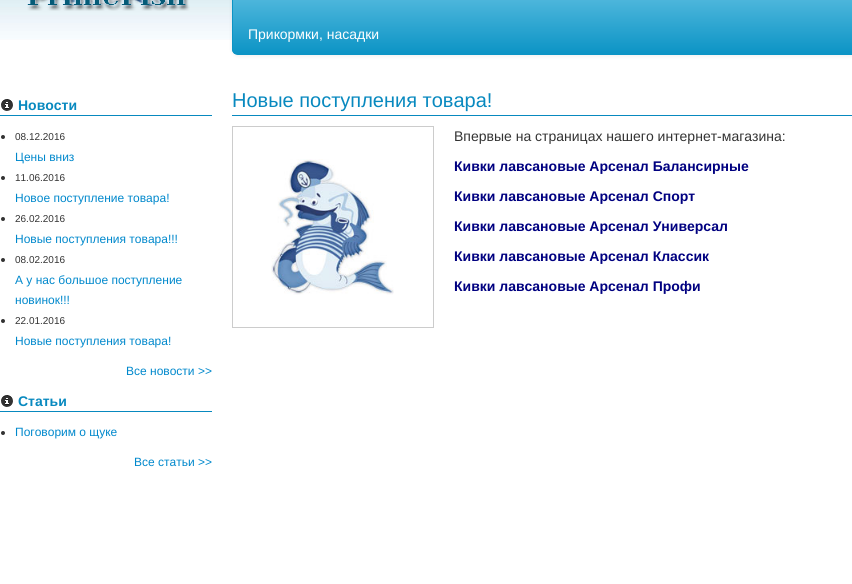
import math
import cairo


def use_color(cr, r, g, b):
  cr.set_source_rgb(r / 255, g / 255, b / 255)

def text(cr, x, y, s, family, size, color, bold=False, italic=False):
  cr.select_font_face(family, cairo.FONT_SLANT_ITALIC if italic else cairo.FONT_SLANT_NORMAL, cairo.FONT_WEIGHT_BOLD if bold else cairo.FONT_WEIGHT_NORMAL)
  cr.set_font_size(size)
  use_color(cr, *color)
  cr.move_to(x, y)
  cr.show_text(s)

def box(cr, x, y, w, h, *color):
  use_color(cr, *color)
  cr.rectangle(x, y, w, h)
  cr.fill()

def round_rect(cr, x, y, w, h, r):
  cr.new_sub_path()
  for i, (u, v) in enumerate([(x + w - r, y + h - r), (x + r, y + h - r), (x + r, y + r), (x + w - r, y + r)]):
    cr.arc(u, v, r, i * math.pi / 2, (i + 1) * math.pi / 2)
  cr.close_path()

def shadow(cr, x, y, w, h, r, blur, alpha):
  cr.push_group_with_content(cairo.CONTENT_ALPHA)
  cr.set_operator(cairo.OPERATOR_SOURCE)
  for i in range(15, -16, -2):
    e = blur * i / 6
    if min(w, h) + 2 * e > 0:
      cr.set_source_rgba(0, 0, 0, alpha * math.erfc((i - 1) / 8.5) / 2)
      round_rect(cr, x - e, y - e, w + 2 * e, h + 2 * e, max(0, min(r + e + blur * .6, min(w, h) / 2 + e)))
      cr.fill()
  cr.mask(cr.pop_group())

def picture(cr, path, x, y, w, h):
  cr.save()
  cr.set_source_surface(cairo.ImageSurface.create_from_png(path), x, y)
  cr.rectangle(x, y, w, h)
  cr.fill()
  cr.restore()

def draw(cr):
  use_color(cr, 255, 255, 255)
  cr.paint()
  picture(cr, "img_01.png", 0, 0, 232, 40)
  picture(cr, "img_02.png", 27, 0, 163, 11)
  use_color(cr, 0, 0, 0)
  shadow(cr, 232, -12, 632, 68, 6, 2, 0.07)
  cr.save()
  round_rect(cr, 232, -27, 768, 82, 6)
  cr.clip()
  gradient = cairo.LinearGradient(616, -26, 616, 54)
  gradient.add_color_stop_rgba(0, 0.42, 0.776, 0.902, 1)
  gradient.add_color_stop_rgba(1, 0.047, 0.58, 0.773, 1)
  cr.set_source(gradient)
  cr.rectangle(232, 0, 620, 54)
  cr.fill()
  cr.restore()
  round_rect(cr, 232.5, -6.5, 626, 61, 5.5)
  use_color(cr, 12, 148, 197)
  cr.set_line_width(1)
  cr.stroke()
  box(cr, 0, 115, 212, 1, 8, 137, 191)
  picture(cr, "img_03.png", 1, 99, 12, 12)
  use_color(cr, 51, 51, 51)
  cr.arc(3, 137, 2, 0, 2 * math.pi)
  cr.fill()
  cr.arc(3, 178, 2, 0, 2 * math.pi)
  cr.fill()
  cr.arc(3, 219, 2, 0, 2 * math.pi)
  cr.fill()
  cr.arc(3, 260, 2, 0, 2 * math.pi)
  cr.fill()
  cr.arc(3, 321, 2, 0, 2 * math.pi)
  cr.fill()
  box(cr, 0, 411, 212, 1, 8, 137, 191)
  picture(cr, "img_03.png", 1, 395, 12, 12)
  use_color(cr, 51, 51, 51)
  cr.arc(3, 433, 2, 0, 2 * math.pi)
  cr.fill()
  box(cr, 232, 115, 620, 1, 8, 137, 191)
  cr.rectangle(232.5, 126.5, 201, 201)
  use_color(cr, 204, 204, 204)
  cr.stroke()
  picture(cr, "img_04.png", 271, 159, 123, 136)
  text(cr, 248, 39, "Прикормки, насадки", "Liberation Sans", 14, (255, 255, 255))
  text(cr, 18, 110, "Новости", "Liberation Sans", 14, (8, 137, 191), bold=True)
  text(cr, 15, 140, "08.12.2016", "Liberation Sans", 10, (51, 51, 51))
  text(cr, 15, 161, "Цены вниз", "Liberation Sans", 12, (0, 136, 204))
  text(cr, 15, 181, "11.06.2016", "Liberation Sans", 10, (51, 51, 51))
  text(cr, 15, 202, "Новое поступление товара!", "Liberation Sans", 12, (0, 136, 204))
  text(cr, 15, 222, "26.02.2016", "Liberation Sans", 10, (51, 51, 51))
  text(cr, 15, 243, "Новые поступления товара!!!", "Liberation Sans", 12, (0, 136, 204))
  text(cr, 15, 263, "08.02.2016", "Liberation Sans", 10, (51, 51, 51))
  text(cr, 15, 284, "А у нас большое поступление", "Liberation Sans", 12, (0, 136, 204))
  text(cr, 15, 304, "новинок!!!", "Liberation Sans", 12, (0, 136, 204))
  text(cr, 15, 324, "22.01.2016", "Liberation Sans", 10, (51, 51, 51))
  text(cr, 15, 345, "Новые поступления товара!", "Liberation Sans", 12, (0, 136, 204))
  text(cr, 126, 375, "Все новости >>", "Liberation Sans", 12, (0, 136, 204))
  text(cr, 18, 406, "Статьи", "Liberation Sans", 14, (8, 137, 191), bold=True)
  text(cr, 15, 436, "Поговорим о щуке", "Liberation Sans", 12, (0, 136, 204))
  text(cr, 134, 466, "Все статьи >>", "Liberation Sans", 12, (0, 136, 204))
  text(cr, 232, 107, "Новые поступления товара!", "Liberation Sans", 20, (8, 137, 191))
  text(cr, 454, 141, "Впервые на страницах нашего интернет-магазина:", "Liberation Sans", 14, (51, 51, 51))
  text(cr, 454, 171, "Кивки лавсановые Арсенал Балансирные", "Liberation Sans", 14, (0, 0, 128), bold=True)
  text(cr, 454, 201, "Кивки лавсановые Арсенал Спорт", "Liberation Sans", 14, (0, 0, 128), bold=True)
  text(cr, 454, 231, "Кивки лавсановые Арсенал Универсал", "Liberation Sans", 14, (0, 0, 128), bold=True)
  text(cr, 454, 261, "Кивки лавсановые Арсенал Классик", "Liberation Sans", 14, (0, 0, 128), bold=True)
  text(cr, 454, 291, "Кивки лавсановые Арсенал Профи", "Liberation Sans", 14, (0, 0, 128), bold=True)


surface = cairo.ImageSurface(cairo.FORMAT_RGB24, 852, 584)
cr = cairo.Context(surface)
options = cairo.FontOptions()
options.set_hint_metrics(cairo.HINT_METRICS_OFF)
options.set_hint_style(cairo.HINT_STYLE_NONE)
cr.set_font_options(options)
cr.set_miter_limit(4)
draw(cr)
surface.write_to_png("out.png")
